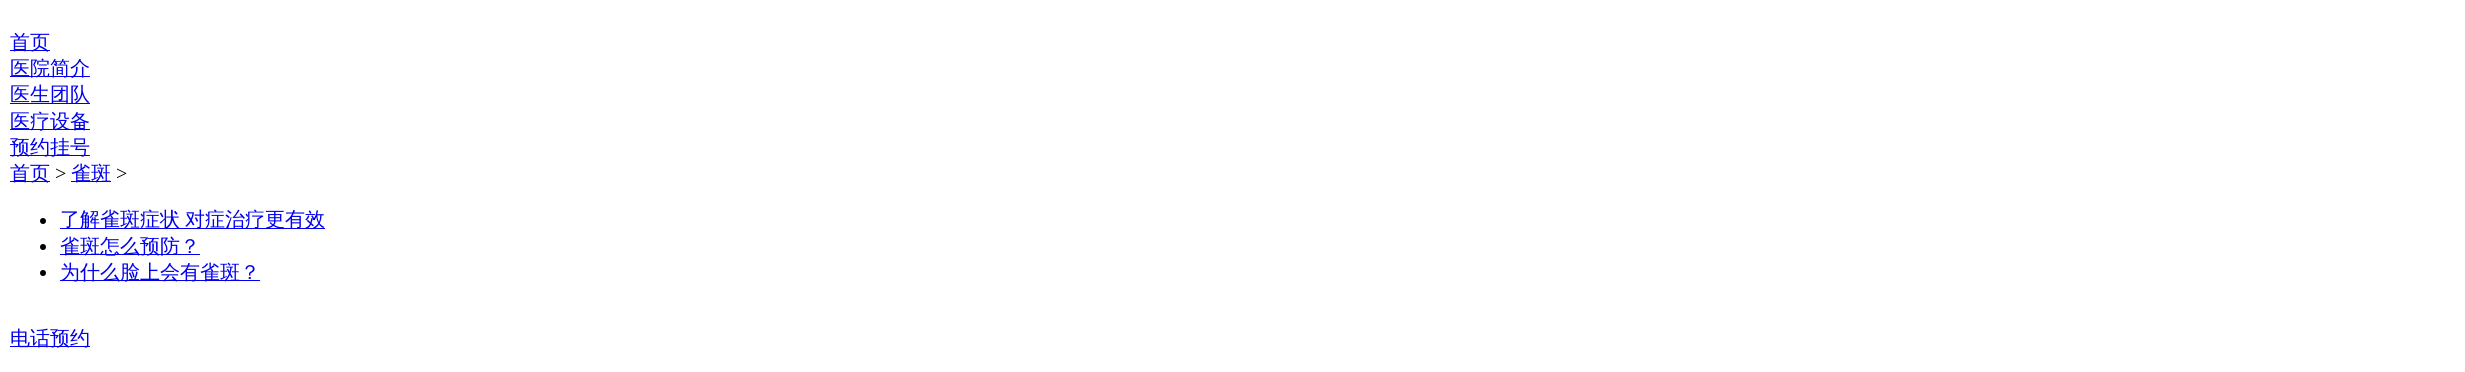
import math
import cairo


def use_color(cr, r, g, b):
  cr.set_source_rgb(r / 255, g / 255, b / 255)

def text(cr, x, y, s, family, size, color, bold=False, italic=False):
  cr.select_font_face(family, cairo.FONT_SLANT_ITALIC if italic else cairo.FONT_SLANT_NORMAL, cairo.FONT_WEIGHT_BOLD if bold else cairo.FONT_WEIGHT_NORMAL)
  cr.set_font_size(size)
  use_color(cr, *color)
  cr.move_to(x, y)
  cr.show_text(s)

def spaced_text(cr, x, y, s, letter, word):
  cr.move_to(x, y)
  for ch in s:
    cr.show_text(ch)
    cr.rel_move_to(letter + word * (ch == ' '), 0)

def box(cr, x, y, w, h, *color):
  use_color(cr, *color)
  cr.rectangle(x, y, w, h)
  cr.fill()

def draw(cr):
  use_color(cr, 255, 255, 255)
  cr.paint()
  box(cr, 10, 50, 40, 1, 0, 0, 238)
  box(cr, 10, 76, 80, 1, 0, 0, 238)
  box(cr, 10, 103, 80, 1, 0, 0, 238)
  box(cr, 10, 129, 80, 1, 0, 0, 238)
  box(cr, 10, 155, 80, 1, 0, 0, 238)
  box(cr, 10, 181, 40, 1, 0, 0, 238)
  box(cr, 71, 181, 40, 1, 0, 0, 238)
  use_color(cr, 0, 0, 0)
  cr.arc(43, 221, 3, 0, 2 * math.pi)
  cr.fill()
  box(cr, 60, 228, 265, 1, 0, 0, 238)
  use_color(cr, 0, 0, 0)
  cr.arc(43, 247, 3, 0, 2 * math.pi)
  cr.fill()
  box(cr, 60, 254, 140, 1, 0, 0, 238)
  use_color(cr, 0, 0, 0)
  cr.arc(43, 273, 3, 0, 2 * math.pi)
  cr.fill()
  box(cr, 60, 280, 200, 1, 0, 0, 238)
  box(cr, 10, 346, 80, 1, 0, 0, 238)
  text(cr, 10, 49, "首页", "WenQuanYi Zen Hei Medium", 20, (0, 0, 238))
  text(cr, 10, 75, "医院简介", "WenQuanYi Zen Hei Medium", 20, (0, 0, 238))
  text(cr, 10, 101, "医生团队", "WenQuanYi Zen Hei Medium", 20, (0, 0, 238))
  text(cr, 10, 128, "医疗设备", "WenQuanYi Zen Hei Medium", 20, (0, 0, 238))
  text(cr, 10, 154, "预约挂号", "WenQuanYi Zen Hei Medium", 20, (0, 0, 238))
  text(cr, 10, 180, "首页", "WenQuanYi Zen Hei Medium", 20, (0, 0, 238))
  text(cr, 55, 180, ">", "Liberation Serif", 20, (0, 0, 0))
  text(cr, 71, 180, "雀斑", "WenQuanYi Zen Hei Medium", 20, (0, 0, 238))
  text(cr, 116, 180, ">", "Liberation Serif", 20, (0, 0, 0))
  cr.select_font_face("WenQuanYi Zen Hei Medium")
  use_color(cr, 0, 0, 238)
  spaced_text(cr, 60, 226, "了解雀斑症状 对症治疗更有效", 0, -1)
  text(cr, 60, 253, "雀斑怎么预防？", "WenQuanYi Zen Hei Medium", 20, (0, 0, 238))
  text(cr, 60, 279, "为什么脸上会有雀斑？", "WenQuanYi Zen Hei Medium", 20, (0, 0, 238))
  text(cr, 10, 345, "电话预约", "WenQuanYi Zen Hei Medium", 20, (0, 0, 238))


surface = cairo.ImageSurface(cairo.FORMAT_RGB24, 2465, 372)
cr = cairo.Context(surface)
options = cairo.FontOptions()
options.set_hint_metrics(cairo.HINT_METRICS_OFF)
options.set_hint_style(cairo.HINT_STYLE_NONE)
cr.set_font_options(options)
cr.set_miter_limit(4)
draw(cr)
surface.write_to_png("out.png")
